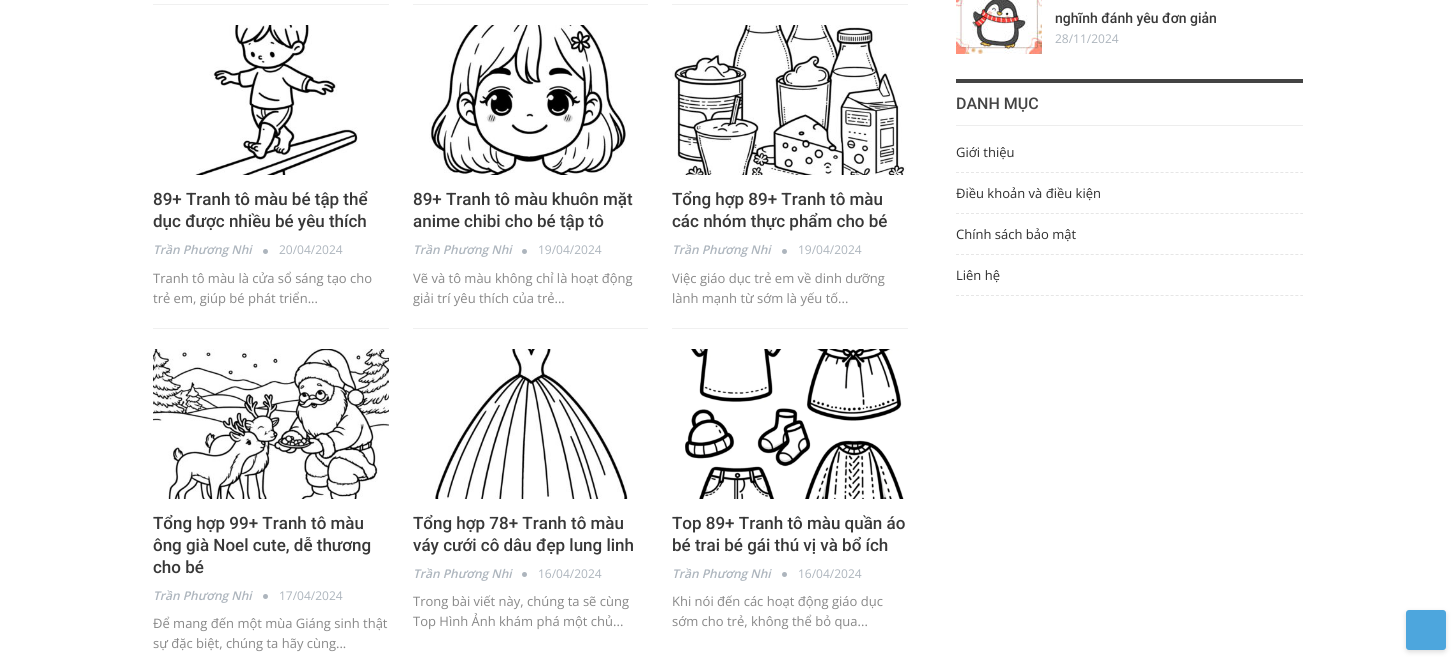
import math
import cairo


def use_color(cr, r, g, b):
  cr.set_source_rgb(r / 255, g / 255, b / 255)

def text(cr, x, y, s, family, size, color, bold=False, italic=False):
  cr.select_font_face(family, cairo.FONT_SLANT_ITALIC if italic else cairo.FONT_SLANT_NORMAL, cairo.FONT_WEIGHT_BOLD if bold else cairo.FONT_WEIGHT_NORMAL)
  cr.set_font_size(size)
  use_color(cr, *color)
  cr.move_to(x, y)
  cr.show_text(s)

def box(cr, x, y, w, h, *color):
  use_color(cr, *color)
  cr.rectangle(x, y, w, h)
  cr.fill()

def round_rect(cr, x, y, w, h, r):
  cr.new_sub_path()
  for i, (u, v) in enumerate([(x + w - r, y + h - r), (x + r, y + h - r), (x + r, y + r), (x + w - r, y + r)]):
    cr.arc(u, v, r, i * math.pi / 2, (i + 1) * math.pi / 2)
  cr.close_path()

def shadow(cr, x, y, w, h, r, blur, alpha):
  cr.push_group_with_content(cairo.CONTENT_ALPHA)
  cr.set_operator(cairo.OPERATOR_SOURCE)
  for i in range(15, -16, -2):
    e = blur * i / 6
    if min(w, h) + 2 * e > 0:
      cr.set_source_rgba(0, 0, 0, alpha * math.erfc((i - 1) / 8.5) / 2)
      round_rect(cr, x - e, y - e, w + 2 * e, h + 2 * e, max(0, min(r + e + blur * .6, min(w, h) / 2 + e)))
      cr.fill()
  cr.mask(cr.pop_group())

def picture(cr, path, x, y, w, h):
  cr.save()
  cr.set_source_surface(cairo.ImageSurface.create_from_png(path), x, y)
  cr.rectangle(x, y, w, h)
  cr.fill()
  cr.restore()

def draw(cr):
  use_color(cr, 255, 255, 255)
  cr.paint()
  picture(cr, "img_01.png", 956, 0, 86, 54)
  box(cr, 956, 79, 347, 4, 68, 68, 68)
  box(cr, 956, 125, 347, 1, 237, 237, 237)
  cr.new_path()
  cr.move_to(956, 172.5)
  cr.line_to(1303, 172.5)
  use_color(cr, 230, 230, 230)
  cr.set_line_width(1)
  cr.set_dash([3, 1.99])
  cr.stroke()
  cr.new_path()
  cr.move_to(956, 213.5)
  cr.line_to(1303, 213.5)
  cr.stroke()
  cr.new_path()
  cr.move_to(956, 254.5)
  cr.line_to(1303, 254.5)
  cr.stroke()
  cr.new_path()
  cr.move_to(956, 295.5)
  cr.line_to(1303, 295.5)
  cr.stroke()
  box(cr, 153, 4, 236, 1, 240, 240, 240)
  picture(cr, "img_02.png", 195, 25, 163, 150)
  use_color(cr, 173, 181, 189)
  cr.arc(265.5, 251.5, 2.5, 0, 2 * math.pi)
  cr.fill()
  box(cr, 413, 4, 235, 1, 240, 240, 240)
  picture(cr, "img_03.png", 429, 25, 197, 150)
  use_color(cr, 173, 181, 189)
  cr.arc(524.5, 251.5, 2.5, 0, 2 * math.pi)
  cr.fill()
  box(cr, 672, 4, 236, 1, 240, 240, 240)
  picture(cr, "img_04.png", 672, 25, 234, 150)
  use_color(cr, 173, 181, 189)
  cr.arc(784.5, 251.5, 2.5, 0, 2 * math.pi)
  cr.fill()
  box(cr, 153, 328, 236, 1, 240, 240, 240)
  picture(cr, "img_05.png", 153, 349, 236, 150)
  use_color(cr, 173, 181, 189)
  cr.arc(265.5, 596.5, 2.5, 0, 2 * math.pi)
  cr.fill()
  box(cr, 413, 328, 235, 1, 240, 240, 240)
  picture(cr, "img_06.png", 435, 349, 193, 150)
  use_color(cr, 173, 181, 189)
  cr.arc(524.5, 574.5, 2.5, 0, 2 * math.pi)
  cr.fill()
  box(cr, 672, 328, 236, 1, 240, 240, 240)
  picture(cr, "img_07.png", 685, 349, 219, 150)
  use_color(cr, 173, 181, 189)
  cr.arc(784.5, 574.5, 2.5, 0, 2 * math.pi)
  cr.fill()
  use_color(cr, 77, 77, 77)
  shadow(cr, 1406, 612, 40, 40, 3, 2.5, 0.2)
  use_color(cr, 77, 166, 221)
  round_rect(cr, 1406, 610, 40, 40, 3)
  cr.fill()
  text(cr, 1055, 23, "nghĩnh đánh yêu đơn giản", "Roboto Medium", 14, (56, 56, 56))
  text(cr, 1055, 43, "28/11/2024", "Open Sans", 12, (173, 181, 189))
  text(cr, 956, 109, "DANH MỤC", "Roboto Medium", 16, (68, 68, 68))
  text(cr, 956, 157, "Giới thiệu", "Open Sans", 13, (45, 45, 45))
  text(cr, 956, 198, "Điều khoản và điều kiện", "Open Sans", 13, (45, 45, 45))
  text(cr, 956, 239, "Chính sách bảo mật", "Open Sans", 13, (45, 45, 45))
  text(cr, 956, 280, "Liên hệ", "Open Sans", 13, (45, 45, 45))
  text(cr, 153, 205, "89+ Tranh tô màu bé tập thể", "Roboto Medium", 17, (56, 56, 56))
  text(cr, 153, 227, "dục được nhiều bé yêu thích", "Roboto Medium", 17, (56, 56, 56))
  text(cr, 153, 254, "Trần Phương Nhi", "Open Sans SemiBold", 12, (173, 181, 189), italic=True)
  text(cr, 279, 254, "20/04/2024", "Open Sans", 12, (173, 181, 189))
  text(cr, 153, 283, "Tranh tô màu là cửa sổ sáng tạo cho", "Open Sans", 13, (136, 136, 136))
  text(cr, 153, 303, "trẻ em, giúp bé phát triển...", "Open Sans", 13, (136, 136, 136))
  text(cr, 413, 205, "89+ Tranh tô màu khuôn mặt", "Roboto Medium", 17, (56, 56, 56))
  text(cr, 413, 227, "anime chibi cho bé tập tô", "Roboto Medium", 17, (56, 56, 56))
  text(cr, 413, 254, "Trần Phương Nhi", "Open Sans SemiBold", 12, (173, 181, 189), italic=True)
  text(cr, 538, 254, "19/04/2024", "Open Sans", 12, (173, 181, 189))
  text(cr, 413, 283, "Vẽ và tô màu không chỉ là hoạt động", "Open Sans", 13, (136, 136, 136))
  text(cr, 413, 303, "giải trí yêu thích của trẻ...", "Open Sans", 13, (136, 136, 136))
  text(cr, 672, 205, "Tổng hợp 89+ Tranh tô màu", "Roboto Medium", 17, (56, 56, 56))
  text(cr, 672, 227, "các nhóm thực phẩm cho bé", "Roboto Medium", 17, (56, 56, 56))
  text(cr, 672, 254, "Trần Phương Nhi", "Open Sans SemiBold", 12, (173, 181, 189), italic=True)
  text(cr, 798, 254, "19/04/2024", "Open Sans", 12, (173, 181, 189))
  text(cr, 672, 283, "Việc giáo dục trẻ em về dinh dưỡng", "Open Sans", 13, (136, 136, 136))
  text(cr, 672, 303, "lành mạnh từ sớm là yếu tố...", "Open Sans", 13, (136, 136, 136))
  text(cr, 153, 529, "Tổng hợp 99+ Tranh tô màu", "Roboto Medium", 17, (56, 56, 56))
  text(cr, 153, 551, "ông già Noel cute, dễ thương", "Roboto Medium", 17, (56, 56, 56))
  text(cr, 153, 573, "cho bé", "Roboto Medium", 17, (56, 56, 56))
  text(cr, 153, 600, "Trần Phương Nhi", "Open Sans SemiBold", 12, (173, 181, 189), italic=True)
  text(cr, 279, 600, "17/04/2024", "Open Sans", 12, (173, 181, 189))
  text(cr, 153, 628, "Để mang đến một mùa Giáng sinh thật", "Open Sans", 13, (136, 136, 136))
  text(cr, 153, 648, "sự đặc biệt, chúng ta hãy cùng...", "Open Sans", 13, (136, 136, 136))
  text(cr, 413, 529, "Tổng hợp 78+ Tranh tô màu", "Roboto Medium", 17, (56, 56, 56))
  text(cr, 413, 551, "váy cưới cô dâu đẹp lung linh", "Roboto Medium", 17, (56, 56, 56))
  text(cr, 413, 578, "Trần Phương Nhi", "Open Sans SemiBold", 12, (173, 181, 189), italic=True)
  text(cr, 538, 578, "16/04/2024", "Open Sans", 12, (173, 181, 189))
  text(cr, 413, 606, "Trong bài viết này, chúng ta sẽ cùng", "Open Sans", 13, (136, 136, 136))
  text(cr, 413, 626, "Top Hình Ảnh khám phá một chủ...", "Open Sans", 13, (136, 136, 136))
  text(cr, 672, 529, "Top 89+ Tranh tô màu quần áo", "Roboto Medium", 17, (56, 56, 56))
  text(cr, 672, 551, "bé trai bé gái thú vị và bổ ích", "Roboto Medium", 17, (56, 56, 56))
  text(cr, 672, 578, "Trần Phương Nhi", "Open Sans SemiBold", 12, (173, 181, 189), italic=True)
  text(cr, 798, 578, "16/04/2024", "Open Sans", 12, (173, 181, 189))
  text(cr, 672, 606, "Khi nói đến các hoạt động giáo dục", "Open Sans", 13, (136, 136, 136))
  text(cr, 672, 626, "sớm cho trẻ, không thể bỏ qua...", "Open Sans", 13, (136, 136, 136))


surface = cairo.ImageSurface(cairo.FORMAT_RGB24, 1456, 658)
cr = cairo.Context(surface)
options = cairo.FontOptions()
options.set_hint_metrics(cairo.HINT_METRICS_OFF)
options.set_hint_style(cairo.HINT_STYLE_NONE)
cr.set_font_options(options)
cr.set_miter_limit(4)
draw(cr)
surface.write_to_png("out.png")
